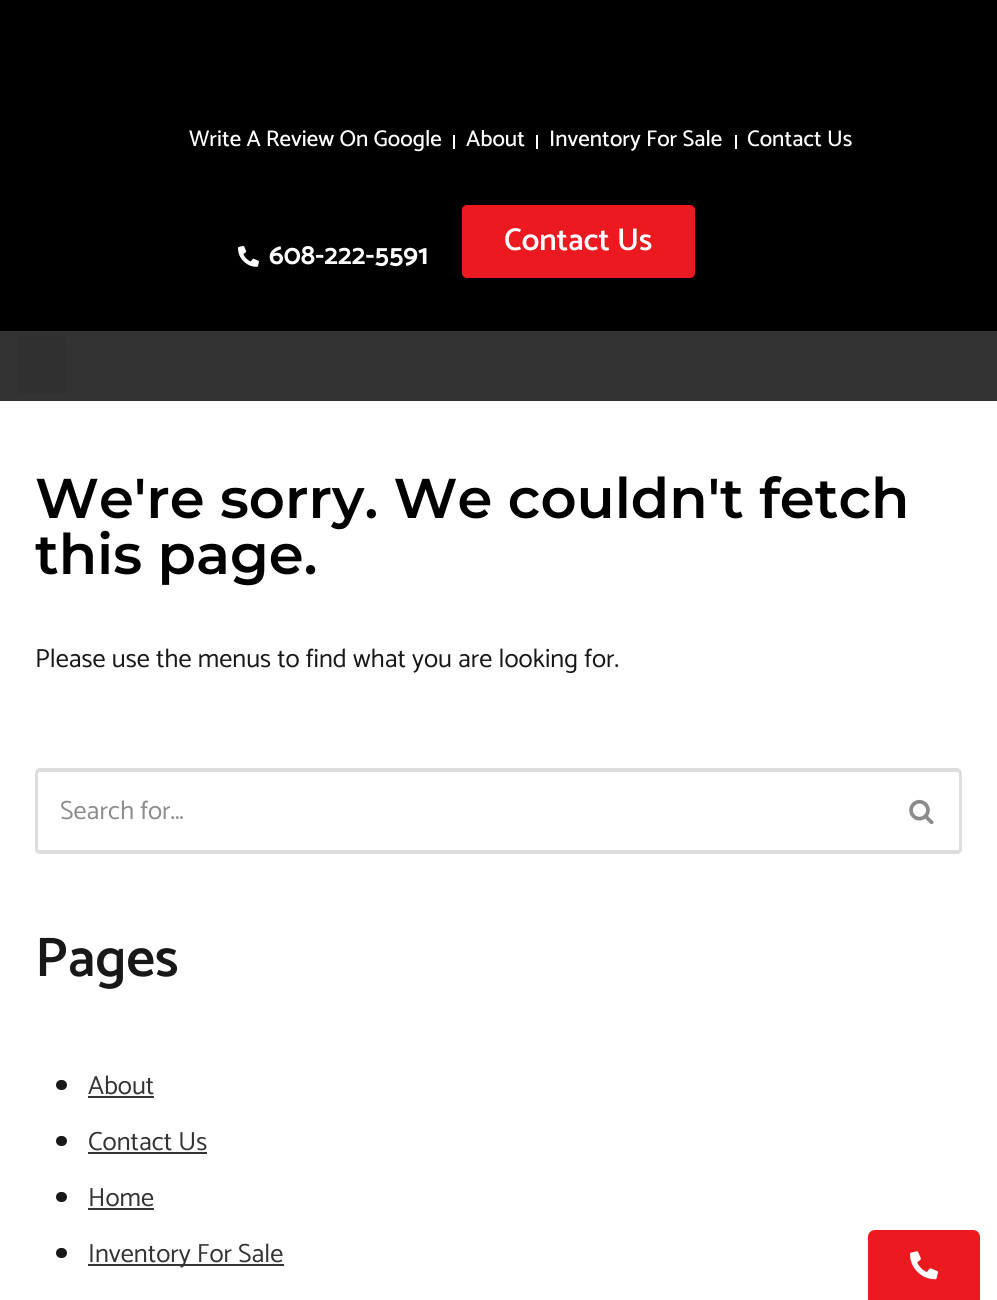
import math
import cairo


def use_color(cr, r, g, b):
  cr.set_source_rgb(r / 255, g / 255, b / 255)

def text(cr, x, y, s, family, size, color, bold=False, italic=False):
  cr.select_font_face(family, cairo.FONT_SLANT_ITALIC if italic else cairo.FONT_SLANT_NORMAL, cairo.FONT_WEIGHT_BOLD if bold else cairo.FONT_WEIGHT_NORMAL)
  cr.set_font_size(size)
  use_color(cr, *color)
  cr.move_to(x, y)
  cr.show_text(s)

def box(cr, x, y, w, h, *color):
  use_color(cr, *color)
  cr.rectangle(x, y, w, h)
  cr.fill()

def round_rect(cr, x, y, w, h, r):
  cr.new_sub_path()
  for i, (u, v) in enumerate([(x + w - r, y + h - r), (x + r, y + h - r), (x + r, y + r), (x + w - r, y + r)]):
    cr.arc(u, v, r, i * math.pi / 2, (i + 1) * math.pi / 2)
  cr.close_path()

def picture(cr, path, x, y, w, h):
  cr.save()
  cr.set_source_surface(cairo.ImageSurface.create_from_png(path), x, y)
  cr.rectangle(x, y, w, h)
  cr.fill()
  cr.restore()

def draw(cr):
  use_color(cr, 255, 255, 255)
  cr.paint()
  box(cr, 0, 0, 997, 331, 0, 0, 0)
  box(cr, 453, 135, 2, 14, 255, 255, 255)
  box(cr, 536, 135, 2, 14, 255, 255, 255)
  box(cr, 735, 135, 2, 14, 255, 255, 255)
  use_color(cr, 237, 25, 32)
  round_rect(cr, 462, 205, 233, 73, 5)
  cr.fill()
  picture(cr, "img_01.png", 238, 245, 21, 22)
  box(cr, 0, 331, 997, 70, 51, 51, 51)
  use_color(cr, 48, 48, 48)
  round_rect(cr, 18, 336, 49, 58, 5)
  cr.fill()
  use_color(cr, 221, 221, 221)
  cr.set_fill_rule(cairo.FILL_RULE_EVEN_ODD)
  cr.new_path()
  cr.move_to(40, 768)
  cr.line_to(884, 768)
  cr.line_to(884, 854)
  cr.line_to(40, 854)
  cr.curve_to(37, 854, 35, 852, 35, 849)
  cr.line_to(35, 774)
  cr.curve_to(35, 771, 37, 768, 40, 768)
  cr.close_path()
  cr.move_to(40, 772)
  cr.line_to(884, 772)
  cr.line_to(884, 850)
  cr.line_to(40, 850)
  cr.curve_to(39, 850, 38, 850, 38, 849)
  cr.line_to(38, 774)
  cr.curve_to(38, 773, 39, 772, 40, 772)
  cr.close_path()
  cr.fill()
  cr.new_path()
  cr.move_to(884, 768)
  cr.line_to(957, 768)
  cr.curve_to(960, 768, 962, 771, 962, 774)
  cr.line_to(962, 849)
  cr.curve_to(962, 852, 960, 854, 957, 854)
  cr.line_to(884, 854)
  cr.close_path()
  cr.move_to(884, 772)
  cr.line_to(957, 772)
  cr.curve_to(958, 772, 959, 773, 959, 774)
  cr.line_to(959, 849)
  cr.curve_to(959, 850, 958, 850, 957, 850)
  cr.line_to(884, 850)
  cr.close_path()
  cr.fill()
  picture(cr, "img_02.png", 909, 799, 25, 25)
  use_color(cr, 24, 24, 24)
  round_rect(cr, 56, 1080, 11, 10, 5)
  cr.fill()
  box(cr, 88, 1096, 66, 2, 51, 51, 51)
  use_color(cr, 24, 24, 24)
  round_rect(cr, 56, 1136, 11, 10, 5)
  cr.fill()
  box(cr, 88, 1152, 119, 2, 51, 51, 51)
  use_color(cr, 24, 24, 24)
  round_rect(cr, 56, 1192, 11, 10, 5)
  cr.fill()
  box(cr, 88, 1208, 66, 2, 51, 51, 51)
  use_color(cr, 24, 24, 24)
  round_rect(cr, 56, 1248, 11, 10, 5)
  cr.fill()
  box(cr, 88, 1264, 196, 2, 51, 51, 51)
  use_color(cr, 237, 25, 32)
  cr.new_path()
  cr.move_to(875, 1230)
  cr.line_to(973, 1230)
  cr.curve_to(977, 1230, 980, 1233, 980, 1237)
  cr.line_to(980, 1300)
  cr.line_to(868, 1300)
  cr.line_to(868, 1237)
  cr.curve_to(868, 1233, 871, 1230, 875, 1230)
  cr.close_path()
  cr.fill()
  picture(cr, "img_03.png", 910, 1251, 28, 29)
  text(cr, 189, 146, "Write A Review On Google", "Catamaran Medium", 22.75, (255, 255, 255))
  text(cr, 466, 146, "About", "Catamaran Medium", 22.75, (255, 255, 255))
  text(cr, 549, 146, "Inventory For Sale", "Catamaran Medium", 22.75, (255, 255, 255))
  text(cr, 747, 146, "Contact Us", "Catamaran Medium", 22.75, (255, 255, 255))
  text(cr, 504, 250, "Contact Us", "Catamaran SemiBold", 31.5, (255, 255, 255))
  text(cr, 269, 264, "608-222-5591", "Catamaran", 28, (255, 255, 255), bold=True)
  text(cr, 35, 518, "We're sorry. We couldn't fetch", "Montserrat SemiBold", 56, (0, 0, 0))
  text(cr, 35, 574, "this page.", "Montserrat SemiBold", 56, (0, 0, 0))
  text(cr, 35, 667, "Please use the menus to find what you are looking for.", "Catamaran", 26.25, (24, 24, 24))
  text(cr, 60, 819, "Search for...", "Catamaran", 26.25, (140, 140, 140))
  text(cr, 35, 976, "Pages", "Catamaran SemiBold", 56, (24, 24, 24))
  text(cr, 88, 1094, "About", "Catamaran", 26.25, (51, 51, 51))
  text(cr, 88, 1150, "Contact Us", "Catamaran", 26.25, (51, 51, 51))
  text(cr, 88, 1206, "Home", "Catamaran", 26.25, (51, 51, 51))
  text(cr, 88, 1262, "Inventory For Sale", "Catamaran", 26.25, (51, 51, 51))


surface = cairo.ImageSurface(cairo.FORMAT_RGB24, 997, 1300)
cr = cairo.Context(surface)
options = cairo.FontOptions()
options.set_hint_metrics(cairo.HINT_METRICS_OFF)
options.set_hint_style(cairo.HINT_STYLE_NONE)
cr.set_font_options(options)
cr.set_miter_limit(4)
draw(cr)
surface.write_to_png("out.png")
